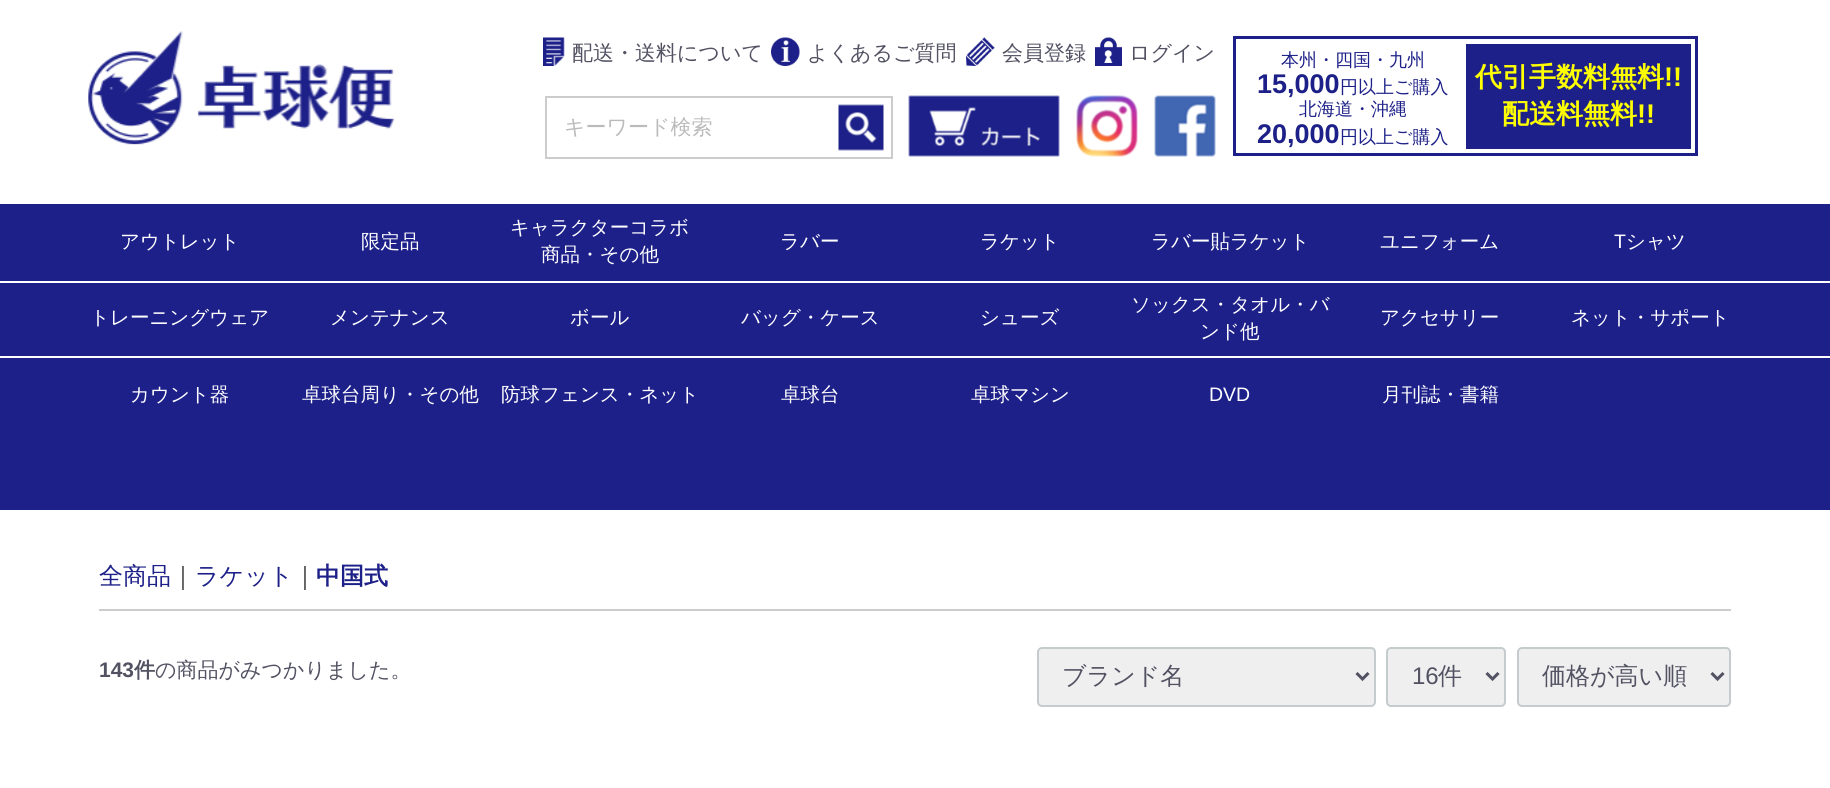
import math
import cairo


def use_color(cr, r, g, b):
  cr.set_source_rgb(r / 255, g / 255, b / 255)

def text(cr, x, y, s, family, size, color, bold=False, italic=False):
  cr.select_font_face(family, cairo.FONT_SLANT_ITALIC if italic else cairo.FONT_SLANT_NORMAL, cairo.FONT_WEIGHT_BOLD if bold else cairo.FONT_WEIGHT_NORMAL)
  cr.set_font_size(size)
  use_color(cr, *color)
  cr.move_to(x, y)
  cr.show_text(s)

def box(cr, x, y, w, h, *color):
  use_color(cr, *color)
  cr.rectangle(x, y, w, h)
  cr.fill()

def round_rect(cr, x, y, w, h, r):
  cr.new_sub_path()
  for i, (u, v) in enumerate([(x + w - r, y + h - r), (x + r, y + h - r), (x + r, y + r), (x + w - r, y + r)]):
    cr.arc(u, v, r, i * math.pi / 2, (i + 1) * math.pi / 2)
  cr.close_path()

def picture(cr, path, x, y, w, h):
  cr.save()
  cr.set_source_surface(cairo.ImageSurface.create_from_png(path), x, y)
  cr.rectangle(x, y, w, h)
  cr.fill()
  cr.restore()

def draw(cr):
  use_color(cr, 255, 255, 255)
  cr.paint()
  picture(cr, "img_01.png", 88, 31, 307, 114)
  picture(cr, "img_02.png", 543, 37, 22, 29)
  picture(cr, "img_03.png", 771, 37, 29, 29)
  picture(cr, "img_04.png", 966, 37, 29, 29)
  picture(cr, "img_05.png", 1095, 37, 27, 29)
  cr.rectangle(1234.5, 37.5, 462, 117)
  use_color(cr, 29, 32, 137)
  cr.set_line_width(3)
  cr.stroke()
  box(cr, 1466, 44, 225, 105, 29, 32, 137)
  cr.rectangle(546, 97, 346, 61)
  use_color(cr, 204, 204, 204)
  cr.set_line_width(2)
  cr.stroke()
  picture(cr, "img_06.png", 838, 104, 46, 47)
  picture(cr, "img_07.png", 908, 95, 152, 62)
  picture(cr, "img_08.png", 1076, 95, 62, 62)
  picture(cr, "img_09.png", 1154, 95, 62, 62)
  box(cr, 0, 204, 1830, 306, 29, 32, 137)
  box(cr, 0, 281, 1830, 2, 255, 255, 255)
  box(cr, 0, 356, 1830, 2, 255, 255, 255)
  box(cr, 99, 609, 1632, 2, 204, 204, 204)
  use_color(cr, 239, 239, 239)
  round_rect(cr, 1038, 648, 337, 58, 4)
  cr.fill_preserve()
  use_color(cr, 196, 204, 206)
  cr.stroke()
  cr.new_path()
  cr.move_to(1356.5, 673)
  cr.line_to(1362.5, 679)
  cr.line_to(1368.5, 673)
  use_color(cr, 82, 82, 99)
  cr.set_line_width(3)
  cr.stroke()
  use_color(cr, 239, 239, 239)
  round_rect(cr, 1387, 648, 118, 58, 4)
  cr.fill_preserve()
  use_color(cr, 196, 204, 206)
  cr.set_line_width(2)
  cr.stroke()
  cr.new_path()
  cr.move_to(1486.5, 673)
  cr.line_to(1492.5, 679)
  cr.line_to(1498.5, 673)
  use_color(cr, 82, 82, 99)
  cr.set_line_width(3)
  cr.stroke()
  use_color(cr, 239, 239, 239)
  round_rect(cr, 1518, 648, 212, 58, 4)
  cr.fill_preserve()
  use_color(cr, 196, 204, 206)
  cr.set_line_width(2)
  cr.stroke()
  cr.new_path()
  cr.move_to(1711.5, 673)
  cr.line_to(1717.5, 679)
  cr.line_to(1723.5, 673)
  use_color(cr, 82, 82, 99)
  cr.set_line_width(3)
  cr.stroke()
  text(cr, 572, 60, "配送・送料について", "WenQuanYi Zen Hei Medium", 21, (82, 82, 99))
  text(cr, 807, 60, "よくあるご質問", "WenQuanYi Zen Hei Medium", 21, (82, 82, 99))
  text(cr, 1002, 60, "会員登録", "WenQuanYi Zen Hei Medium", 21, (82, 82, 99))
  text(cr, 1129, 60, "ログイン", "WenQuanYi Zen Hei Medium", 21, (82, 82, 99))
  text(cr, 1281, 66, "本州・四国・九州", "WenQuanYi Zen Hei Medium", 18, (29, 32, 136))
  text(cr, 1257, 93, "15,000", "Liberation Sans", 27, (29, 32, 136), bold=True)
  text(cr, 1340, 93, "円以上ご購入", "WenQuanYi Zen Hei Medium", 18, (29, 32, 136))
  text(cr, 1299, 115, "北海道・沖縄", "WenQuanYi Zen Hei Medium", 18, (29, 32, 136))
  text(cr, 1257, 143, "20,000", "Liberation Sans", 27, (29, 32, 136), bold=True)
  text(cr, 1340, 143, "円以上ご購入", "WenQuanYi Zen Hei Medium", 18, (29, 32, 136))
  text(cr, 1475, 86, "代引手数料無料", "WenQuanYi Zen Hei", 27, (254, 255, 0), bold=True)
  text(cr, 1664, 86, "!!", "Liberation Sans", 27, (254, 255, 0), bold=True)
  text(cr, 1502, 123, "配送料無料", "WenQuanYi Zen Hei", 27, (254, 255, 0), bold=True)
  text(cr, 1637, 123, "!!", "Liberation Sans", 27, (254, 255, 0), bold=True)
  text(cr, 564, 134, "キーワード検索", "WenQuanYi Zen Hei Medium", 21, (187, 187, 187))
  text(cr, 120, 248, "アウトレット", "WenQuanYi Zen Hei Medium", 19.5, (255, 255, 255))
  text(cr, 361, 248, "限定品", "WenQuanYi Zen Hei Medium", 19.5, (255, 255, 255))
  text(cr, 510, 234, "キャラクターコラボ", "WenQuanYi Zen Hei Medium", 19.5, (255, 255, 255))
  text(cr, 541, 261, "商品・その他", "WenQuanYi Zen Hei Medium", 19.5, (255, 255, 255))
  text(cr, 780, 248, "ラバー", "WenQuanYi Zen Hei Medium", 19.5, (255, 255, 255))
  text(cr, 980, 248, "ラケット", "WenQuanYi Zen Hei Medium", 19.5, (255, 255, 255))
  text(cr, 1151, 248, "ラバー貼ラケット", "WenQuanYi Zen Hei Medium", 19.5, (255, 255, 255))
  text(cr, 1380, 248, "ユニフォーム", "WenQuanYi Zen Hei Medium", 19.5, (255, 255, 255))
  text(cr, 1614, 248, "T", "Liberation Sans", 19.5, (255, 255, 255))
  text(cr, 1626, 248, "シャツ", "WenQuanYi Zen Hei Medium", 19.5, (255, 255, 255))
  text(cr, 90, 324, "トレーニングウェア", "WenQuanYi Zen Hei Medium", 19.5, (255, 255, 255))
  text(cr, 330, 324, "メンテナンス", "WenQuanYi Zen Hei Medium", 19.5, (255, 255, 255))
  text(cr, 570, 324, "ボール", "WenQuanYi Zen Hei Medium", 19.5, (255, 255, 255))
  text(cr, 741, 324, "バッグ・ケース", "WenQuanYi Zen Hei Medium", 19.5, (255, 255, 255))
  text(cr, 980, 324, "シューズ", "WenQuanYi Zen Hei Medium", 19.5, (255, 255, 255))
  text(cr, 1131, 311, "ソックス・タオル・バ", "WenQuanYi Zen Hei Medium", 19.5, (255, 255, 255))
  text(cr, 1200, 338, "ンド他", "WenQuanYi Zen Hei Medium", 19.5, (255, 255, 255))
  text(cr, 1380, 324, "アクセサリー", "WenQuanYi Zen Hei Medium", 19.5, (255, 255, 255))
  text(cr, 1571, 324, "ネット・サポート", "WenQuanYi Zen Hei Medium", 19.5, (255, 255, 255))
  text(cr, 130, 401, "カウント器", "WenQuanYi Zen Hei Medium", 19.5, (255, 255, 255))
  text(cr, 302, 401, "卓球台周り・その他", "WenQuanYi Zen Hei Medium", 19.5, (255, 255, 255))
  text(cr, 501, 401, "防球フェンス・ネット", "WenQuanYi Zen Hei Medium", 19.5, (255, 255, 255))
  text(cr, 781, 401, "卓球台", "WenQuanYi Zen Hei Medium", 19.5, (255, 255, 255))
  text(cr, 971, 401, "卓球マシン", "WenQuanYi Zen Hei Medium", 19.5, (255, 255, 255))
  text(cr, 1209, 401, "DVD", "Liberation Sans", 19.5, (255, 255, 255))
  text(cr, 1382, 401, "月刊誌・書籍", "WenQuanYi Zen Hei Medium", 19.5, (255, 255, 255))
  text(cr, 99, 584, "全商品", "WenQuanYi Zen Hei Medium", 24, (29, 32, 136))
  text(cr, 171, 584, "｜", "WenQuanYi Zen Hei Medium", 24, (51, 51, 51))
  text(cr, 195, 584, "ラケット", "WenQuanYi Zen Hei Medium", 24, (29, 32, 136))
  text(cr, 293, 584, "｜", "WenQuanYi Zen Hei Medium", 24, (51, 51, 51))
  text(cr, 316, 584, "中国式", "WenQuanYi Zen Hei", 24, (29, 32, 136), bold=True)
  text(cr, 99, 677, "143", "Liberation Sans", 21, (82, 82, 99), bold=True)
  text(cr, 134, 677, "件", "WenQuanYi Zen Hei", 21, (82, 82, 99), bold=True)
  text(cr, 155, 677, "の商品がみつかりました。", "WenQuanYi Zen Hei Medium", 21, (82, 82, 99))
  text(cr, 1062, 684, "ブランド名", "WenQuanYi Zen Hei Medium", 24, (82, 82, 99))
  text(cr, 1412, 684, "16", "Liberation Sans", 24, (82, 82, 99))
  text(cr, 1438, 684, "件", "WenQuanYi Zen Hei Medium", 24, (82, 82, 99))
  text(cr, 1542, 684, "価格が高い順", "WenQuanYi Zen Hei Medium", 24, (82, 82, 99))


surface = cairo.ImageSurface(cairo.FORMAT_RGB24, 1830, 788)
cr = cairo.Context(surface)
options = cairo.FontOptions()
options.set_hint_metrics(cairo.HINT_METRICS_OFF)
options.set_hint_style(cairo.HINT_STYLE_NONE)
cr.set_font_options(options)
cr.set_miter_limit(4)
draw(cr)
surface.write_to_png("out.png")
